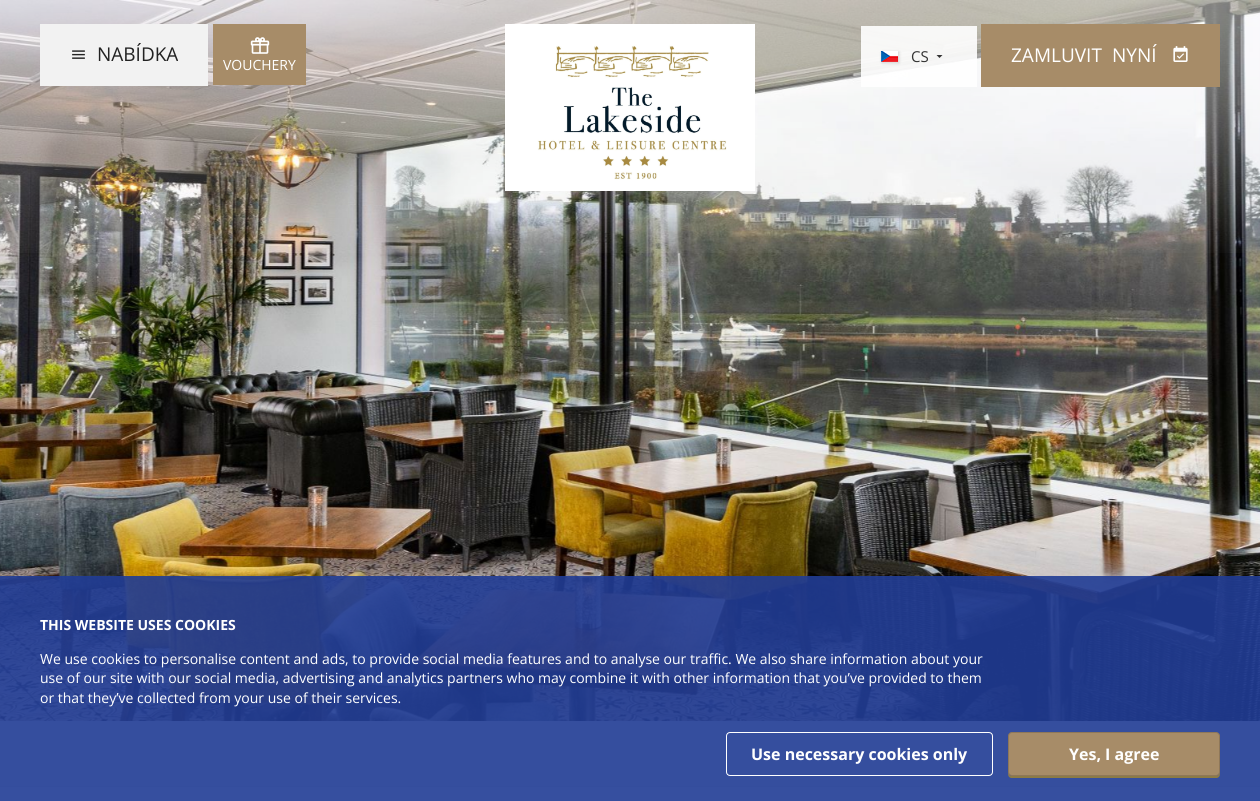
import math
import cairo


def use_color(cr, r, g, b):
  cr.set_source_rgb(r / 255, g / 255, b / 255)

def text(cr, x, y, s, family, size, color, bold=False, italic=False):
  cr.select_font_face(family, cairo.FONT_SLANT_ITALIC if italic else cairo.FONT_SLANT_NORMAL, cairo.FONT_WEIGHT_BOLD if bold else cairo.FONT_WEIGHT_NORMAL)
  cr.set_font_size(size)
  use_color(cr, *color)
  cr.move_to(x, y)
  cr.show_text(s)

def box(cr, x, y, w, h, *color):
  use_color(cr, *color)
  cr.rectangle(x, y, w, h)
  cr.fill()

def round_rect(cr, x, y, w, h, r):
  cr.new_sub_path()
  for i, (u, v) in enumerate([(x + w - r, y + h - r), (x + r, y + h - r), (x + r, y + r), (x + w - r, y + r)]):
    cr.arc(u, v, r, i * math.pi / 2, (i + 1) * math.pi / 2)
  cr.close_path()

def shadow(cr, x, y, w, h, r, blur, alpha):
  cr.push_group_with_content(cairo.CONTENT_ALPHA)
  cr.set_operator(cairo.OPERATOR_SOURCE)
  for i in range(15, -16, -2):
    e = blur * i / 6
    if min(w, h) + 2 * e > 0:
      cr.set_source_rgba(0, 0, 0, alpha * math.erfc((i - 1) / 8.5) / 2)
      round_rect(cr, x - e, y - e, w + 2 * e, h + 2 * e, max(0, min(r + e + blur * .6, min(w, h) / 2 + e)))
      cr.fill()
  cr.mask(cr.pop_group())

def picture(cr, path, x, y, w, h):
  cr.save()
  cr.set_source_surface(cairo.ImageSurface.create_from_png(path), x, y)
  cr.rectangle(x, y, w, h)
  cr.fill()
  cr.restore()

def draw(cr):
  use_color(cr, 255, 255, 255)
  cr.paint()
  picture(cr, "img_01.png", 1259, 0, 1, 721)
  picture(cr, "img_02.png", 0, 0, 1260, 721)
  gradient = cairo.LinearGradient(630, 0, 630, 264)
  gradient.add_color_stop_rgba(0, 1, 1, 1, 0.5)
  gradient.add_color_stop_rgba(1, 1, 1, 1, 0)
  cr.set_source(gradient)
  cr.rectangle(0, 0, 1260, 253)
  cr.fill()
  box(cr, 40, 24, 168, 62, 242, 242, 242)
  picture(cr, "img_03.png", 72, 50, 13, 9)
  box(cr, 213, 24, 93, 61, 167, 140, 104)
  picture(cr, "img_04.png", 250, 37, 20, 17)
  picture(cr, "img_05.png", 505, 24, 250, 167)
  cr.set_source_rgba(1, 1, 1, 0.9)
  cr.rectangle(861, 26, 116, 61)
  cr.fill()
  use_color(cr, 0, 0, 0)
  shadow(cr, 882, 52, 17, 11, 0, 1.5, 0.16)
  picture(cr, "img_06.png", 881, 51, 17, 11)
  use_color(cr, 51, 51, 51)
  cr.new_path()
  cr.move_to(936.5, 55)
  cr.line_to(939.5, 58)
  cr.line_to(942.5, 55)
  cr.close_path()
  cr.fill()
  box(cr, 981, 24, 239, 63, 167, 140, 104)
  picture(cr, "img_07.png", 1173, 46, 15, 16)
  box(cr, 0, 721, 1260, 65, 242, 242, 242)
  box(cr, 0, 786, 1260, 1, 230, 230, 230)
  cr.set_source_rgba(0.129, 0.235, 0.584, 0.9)
  cr.rectangle(0, 576, 1260, 225)
  cr.fill()
  round_rect(cr, 726.5, 732.5, 266, 43, 3.5)
  use_color(cr, 255, 255, 255)
  cr.set_line_width(1)
  cr.stroke()
  use_color(cr, 140, 123, 70)
  cr.new_path()
  cr.move_to(1008, 772)
  cr.curve_to(1008, 775, 1008, 777, 1011, 778)
  cr.line_to(1217, 778)
  cr.curve_to(1220, 777, 1220, 775, 1220, 772)
  cr.curve_to(1220, 774, 1218, 776, 1216, 776)
  cr.line_to(1012, 776)
  cr.curve_to(1010, 776, 1008, 774, 1008, 772)
  cr.close_path()
  cr.fill()
  use_color(cr, 167, 140, 104)
  round_rect(cr, 1008.5, 732.5, 211, 43, 3.5)
  cr.fill_preserve()
  use_color(cr, 142, 119, 89)
  cr.stroke()
  text(cr, 97, 61, "NABÍDKA", "Open Sans", 19, (34, 34, 34))
  text(cr, 223, 70, "VOUCHERY", "Open Sans", 14, (255, 255, 255))
  text(cr, 911, 62, "CS", "Open Sans", 15, (51, 51, 51))
  text(cr, 1011, 62, "ZAMLUVIT", "Open Sans", 19, (255, 255, 255))
  text(cr, 1112, 62, "NYNÍ", "Open Sans", 19, (255, 255, 255))
  text(cr, 40, 630, "THIS WEBSITE USES COOKIES", "Open Sans", 14, (255, 255, 255), bold=True)
  text(cr, 40, 664, "We use cookies to personalise content and ads, to provide social media features and to analyse our traffic. We also share information about your", "Open Sans", 14, (255, 255, 255))
  text(cr, 40, 683, "use of our site with our social media, advertising and analytics partners who may combine it with other information that you’ve provided to them", "Open Sans", 14, (255, 255, 255))
  text(cr, 40, 703, "or that they’ve collected from your use of their services.", "Open Sans", 14, (255, 255, 255))
  text(cr, 751, 760, "Use necessary cookies only", "Open Sans", 16, (255, 255, 255), bold=True)
  text(cr, 1069, 760, "Yes, I agree", "Open Sans", 16, (255, 255, 255), bold=True)


surface = cairo.ImageSurface(cairo.FORMAT_RGB24, 1260, 801)
cr = cairo.Context(surface)
options = cairo.FontOptions()
options.set_hint_metrics(cairo.HINT_METRICS_OFF)
options.set_hint_style(cairo.HINT_STYLE_NONE)
cr.set_font_options(options)
cr.set_miter_limit(4)
draw(cr)
surface.write_to_png("out.png")
